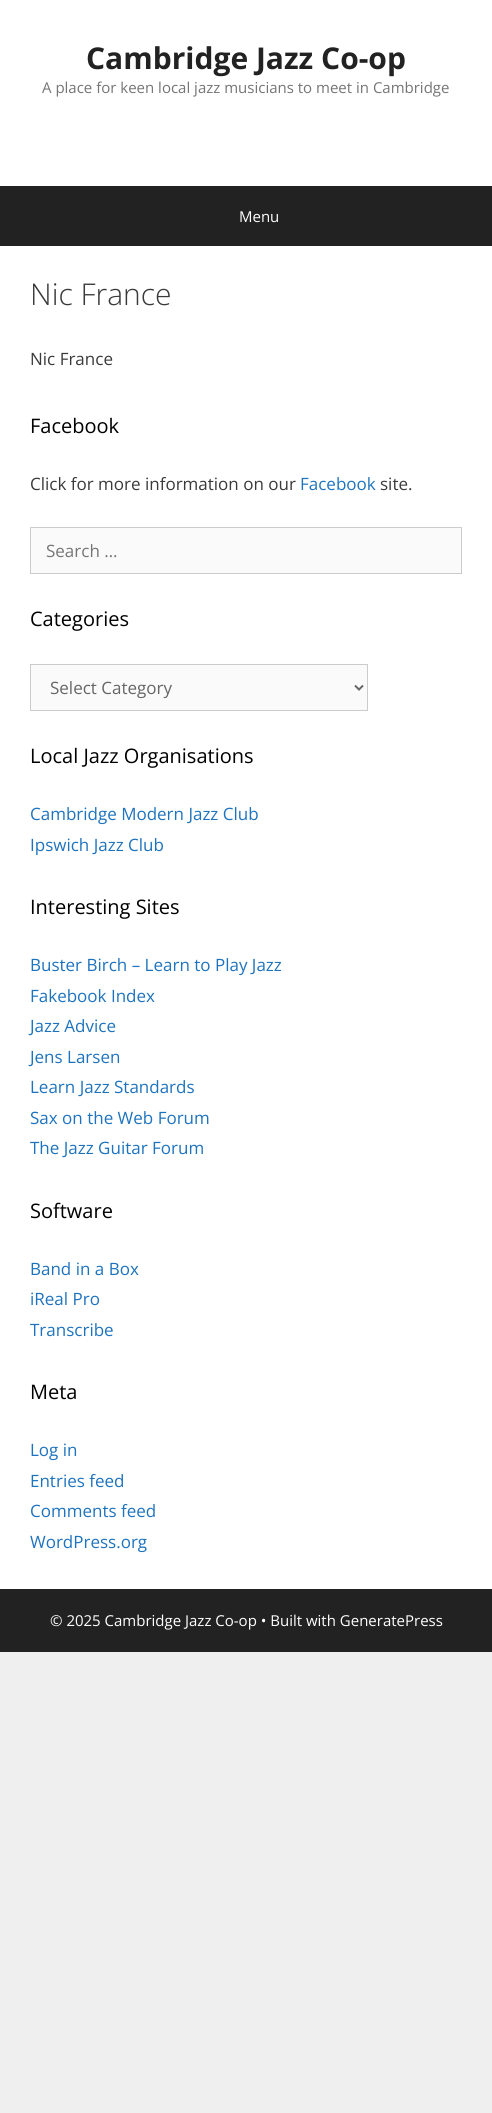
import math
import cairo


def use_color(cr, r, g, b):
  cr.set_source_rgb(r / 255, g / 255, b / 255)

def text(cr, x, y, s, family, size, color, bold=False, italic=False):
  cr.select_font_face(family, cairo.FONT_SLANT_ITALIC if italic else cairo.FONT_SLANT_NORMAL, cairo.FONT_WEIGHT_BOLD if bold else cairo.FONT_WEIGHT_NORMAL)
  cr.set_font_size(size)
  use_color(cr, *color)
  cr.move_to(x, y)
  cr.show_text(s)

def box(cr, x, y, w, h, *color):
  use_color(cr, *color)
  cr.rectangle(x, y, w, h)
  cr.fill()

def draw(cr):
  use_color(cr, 239, 239, 239)
  cr.paint()
  box(cr, 0, 0, 492, 186, 255, 255, 255)
  box(cr, 0, 186, 492, 60, 34, 34, 34)
  box(cr, 0, 246, 492, 1343, 255, 255, 255)
  use_color(cr, 250, 250, 250)
  cr.rectangle(30.5, 527.5, 431, 46)
  cr.fill_preserve()
  use_color(cr, 204, 204, 204)
  cr.set_line_width(1)
  cr.stroke()
  use_color(cr, 250, 250, 250)
  cr.rectangle(30.5, 664.5, 337, 46)
  cr.fill_preserve()
  use_color(cr, 204, 204, 204)
  cr.stroke()
  cr.new_path()
  cr.move_to(355, 685.5)
  cr.line_to(359, 689.5)
  cr.line_to(363, 685.5)
  use_color(cr, 102, 102, 102)
  cr.set_line_width(2)
  cr.stroke()
  box(cr, 0, 1589, 492, 63, 34, 34, 34)
  text(cr, 86, 69, "Cambridge Jazz Co-op", "Open Sans", 30, (34, 34, 34), bold=True)
  text(cr, 42, 93, "A place for keen local jazz musicians to meet in Cambridge", "Open Sans", 15, (117, 117, 117))
  text(cr, 239, 222, "Menu", "Open Sans", 15, (255, 255, 255))
  text(cr, 30, 305, "Nic France", "Open Sans Light", 30, (58, 58, 58))
  text(cr, 30, 365, "Nic France", "Open Sans", 17, (58, 58, 58))
  text(cr, 30, 433, "Facebook", "Open Sans", 20, (0, 0, 0))
  text(cr, 30, 490, "Click for more information on our", "Open Sans", 17, (58, 58, 58))
  text(cr, 300, 490, "Facebook", "Open Sans", 17, (30, 115, 190))
  text(cr, 380, 490, "site.", "Open Sans", 17, (58, 58, 58))
  text(cr, 46, 557, "Search …", "Open Sans", 17, (117, 117, 117))
  text(cr, 30, 626, "Categories", "Open Sans", 20, (0, 0, 0))
  text(cr, 50, 694, "Select Category", "Open Sans", 17, (102, 102, 102))
  text(cr, 30, 763, "Local Jazz Organisations", "Open Sans", 20, (0, 0, 0))
  text(cr, 30, 820, "Cambridge Modern Jazz Club", "Open Sans", 17, (30, 115, 190))
  text(cr, 30, 851, "Ipswich Jazz Club", "Open Sans", 17, (30, 115, 190))
  text(cr, 30, 914, "Interesting Sites", "Open Sans", 20, (0, 0, 0))
  text(cr, 30, 971, "Buster Birch – Learn to Play Jazz", "Open Sans", 17, (30, 115, 190))
  text(cr, 30, 1002, "Fakebook Index", "Open Sans", 17, (30, 115, 190))
  text(cr, 30, 1032, "Jazz Advice", "Open Sans", 17, (30, 115, 190))
  text(cr, 30, 1063, "Jens Larsen", "Open Sans", 17, (30, 115, 190))
  text(cr, 30, 1093, "Learn Jazz Standards", "Open Sans", 17, (30, 115, 190))
  text(cr, 30, 1124, "Sax on the Web Forum", "Open Sans", 17, (30, 115, 190))
  text(cr, 30, 1154, "The Jazz Guitar Forum", "Open Sans", 17, (30, 115, 190))
  text(cr, 30, 1218, "Software", "Open Sans", 20, (0, 0, 0))
  text(cr, 30, 1275, "Band in a Box", "Open Sans", 17, (30, 115, 190))
  text(cr, 30, 1305, "iReal Pro", "Open Sans", 17, (30, 115, 190))
  text(cr, 30, 1336, "Transcribe", "Open Sans", 17, (30, 115, 190))
  text(cr, 30, 1399, "Meta", "Open Sans", 20, (0, 0, 0))
  text(cr, 30, 1456, "Log in", "Open Sans", 17, (30, 115, 190))
  text(cr, 30, 1487, "Entries feed", "Open Sans", 17, (30, 115, 190))
  text(cr, 30, 1517, "Comments feed", "Open Sans", 17, (30, 115, 190))
  text(cr, 30, 1548, "WordPress.org", "Open Sans", 17, (30, 115, 190))
  text(cr, 50, 1626, "© 2025 Cambridge Jazz Co-op • Built with GeneratePress", "Open Sans", 15, (255, 255, 255))


surface = cairo.ImageSurface(cairo.FORMAT_RGB24, 492, 2113)
cr = cairo.Context(surface)
options = cairo.FontOptions()
options.set_hint_metrics(cairo.HINT_METRICS_OFF)
options.set_hint_style(cairo.HINT_STYLE_NONE)
cr.set_font_options(options)
cr.set_miter_limit(4)
draw(cr)
surface.write_to_png("out.png")
